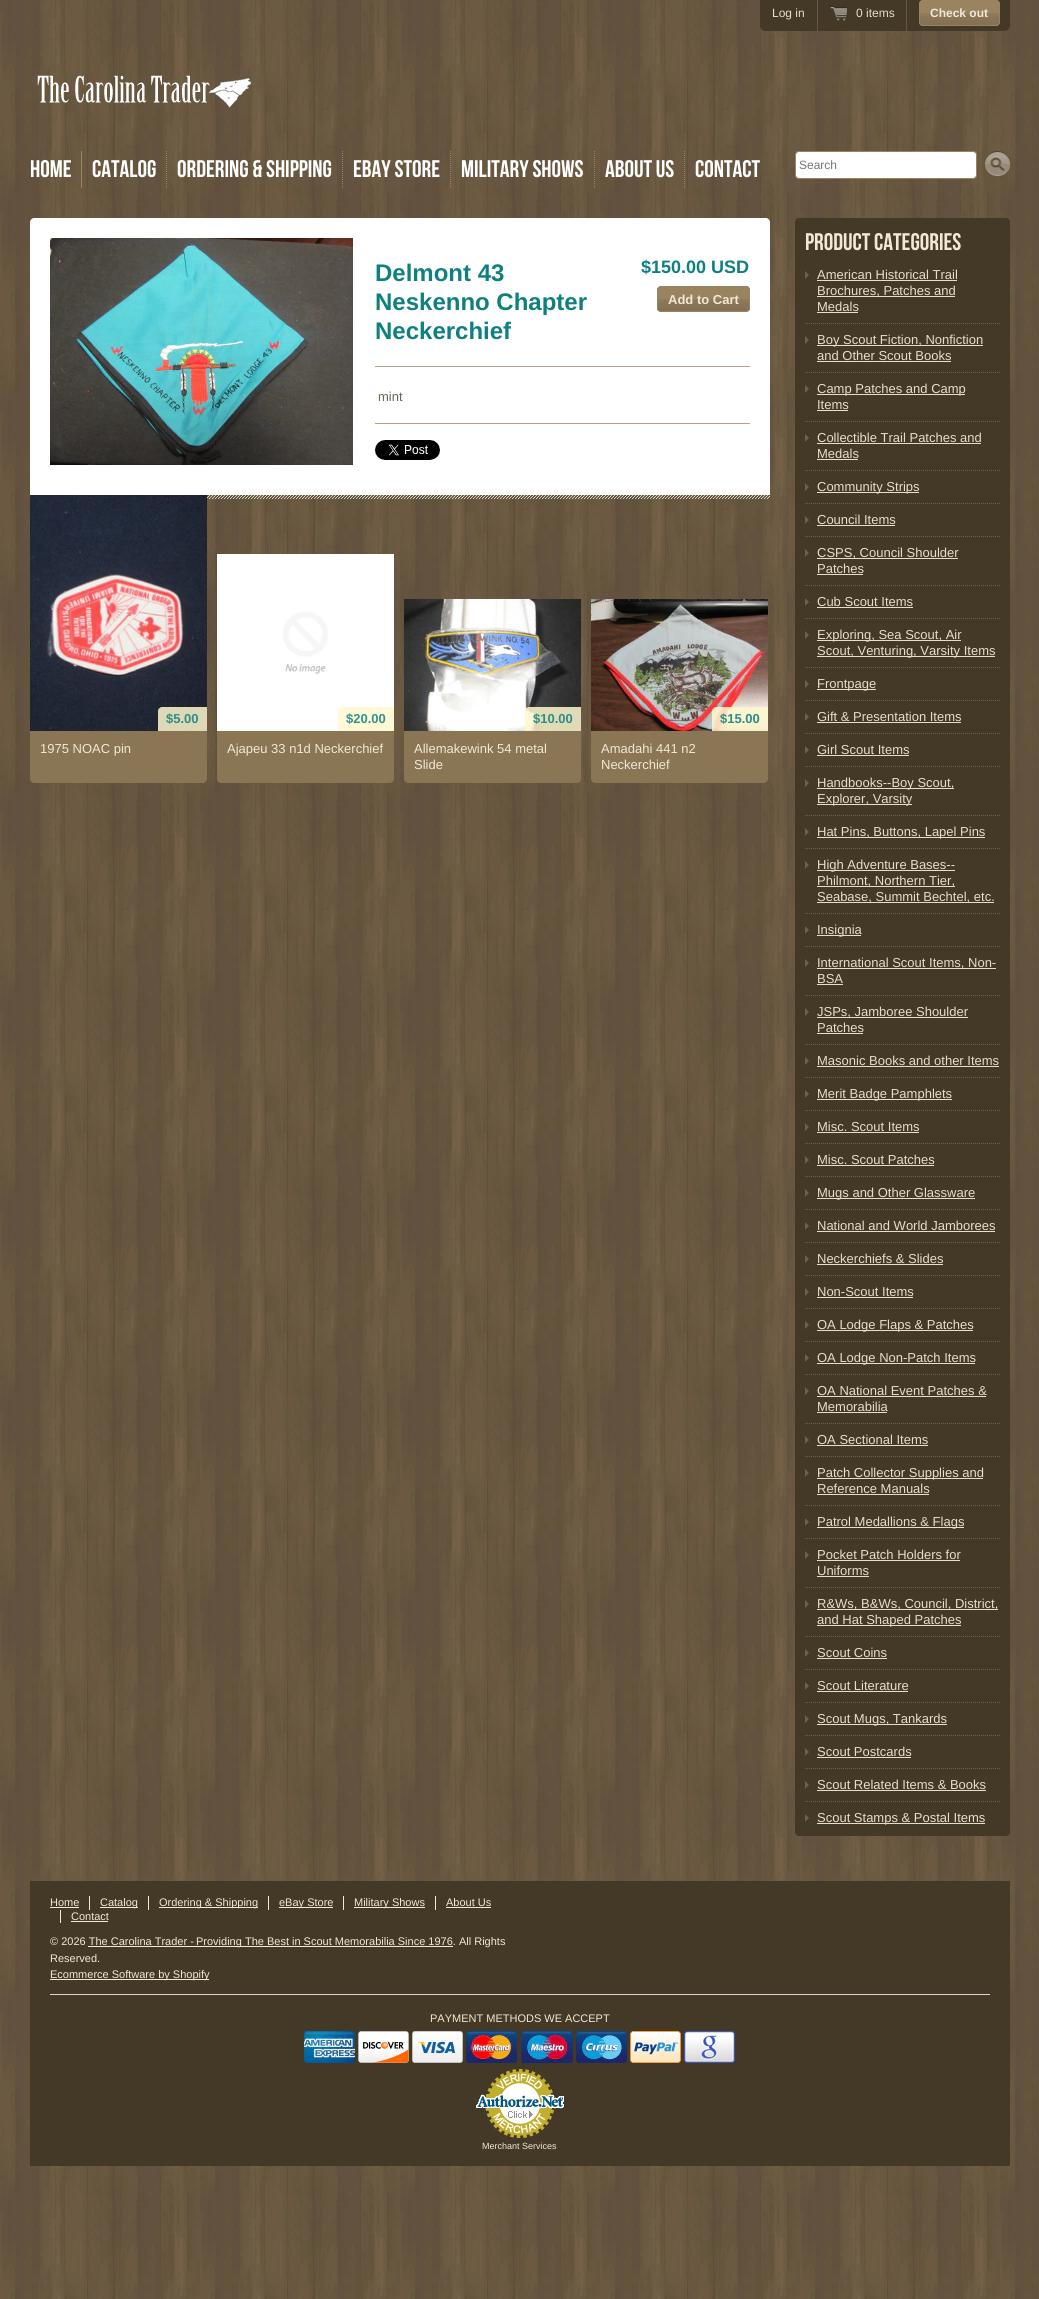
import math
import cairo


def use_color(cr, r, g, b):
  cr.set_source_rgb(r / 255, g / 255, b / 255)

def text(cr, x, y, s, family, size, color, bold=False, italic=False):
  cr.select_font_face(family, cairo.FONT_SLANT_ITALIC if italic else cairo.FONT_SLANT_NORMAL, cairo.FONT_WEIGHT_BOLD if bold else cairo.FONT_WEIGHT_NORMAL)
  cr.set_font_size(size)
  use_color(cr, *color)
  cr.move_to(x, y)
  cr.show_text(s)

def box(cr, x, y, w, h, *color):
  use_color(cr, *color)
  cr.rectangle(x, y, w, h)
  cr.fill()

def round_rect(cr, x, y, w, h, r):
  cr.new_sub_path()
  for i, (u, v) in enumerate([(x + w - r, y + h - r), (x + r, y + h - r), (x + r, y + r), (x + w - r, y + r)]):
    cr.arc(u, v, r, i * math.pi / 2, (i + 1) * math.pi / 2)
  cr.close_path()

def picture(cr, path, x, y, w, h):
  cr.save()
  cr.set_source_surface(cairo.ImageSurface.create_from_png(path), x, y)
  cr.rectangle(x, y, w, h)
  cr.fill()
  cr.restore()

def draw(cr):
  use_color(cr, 255, 255, 255)
  cr.paint()
  picture(cr, "img_01.png", 0, 0, 1039, 2299)
  use_color(cr, 68, 56, 39)
  cr.new_path()
  cr.move_to(760, 0)
  cr.line_to(1010, 0)
  cr.line_to(1010, 25)
  cr.curve_to(1010, 28.5, 1007.5, 31, 1004, 31)
  cr.line_to(766, 31)
  cr.curve_to(762.5, 31, 760, 28.5, 760, 25)
  cr.close_path()
  cr.fill()
  box(cr, 817, 0, 1, 31, 102, 86, 63)
  box(cr, 906, 0, 1, 31, 102, 86, 63)
  picture(cr, "img_02.png", 830, 6, 17, 15)
  use_color(cr, 154, 131, 97)
  round_rect(cr, 919, 0, 81, 26, 4)
  cr.fill()
  picture(cr, "img_03.png", 919, 13, 81, 12)
  round_rect(cr, 919.5, 0.5, 80, 25, 3.5)
  cr.set_line_width(1)
  cr.stroke()
  picture(cr, "img_04.png", 37, 75, 215, 33)
  box(cr, 81, 151, 1, 37, 155, 131, 94)
  cr.new_path()
  cr.move_to(166.5, 151)
  cr.line_to(166.5, 188)
  cr.set_dash([1, 1])
  cr.stroke()
  cr.new_path()
  cr.move_to(342.5, 151)
  cr.line_to(342.5, 188)
  cr.stroke()
  cr.new_path()
  cr.move_to(450.5, 151)
  cr.line_to(450.5, 188)
  cr.stroke()
  cr.new_path()
  cr.move_to(594.5, 151)
  cr.line_to(594.5, 188)
  cr.stroke()
  cr.new_path()
  cr.move_to(684.5, 151)
  cr.line_to(684.5, 188)
  cr.stroke()
  use_color(cr, 255, 255, 255)
  round_rect(cr, 795.5, 151.5, 181, 27, 3.5)
  cr.fill_preserve()
  use_color(cr, 155, 131, 94)
  cr.set_dash([])
  cr.stroke()
  picture(cr, "img_05.png", 985, 151, 25, 25)
  use_color(cr, 255, 255, 255)
  cr.new_path()
  cr.move_to(34, 218)
  cr.line_to(766, 218)
  cr.curve_to(768, 218, 770, 220, 770, 222)
  cr.line_to(770, 495)
  cr.line_to(30, 495)
  cr.line_to(30, 222)
  cr.curve_to(30, 220, 32, 218, 34, 218)
  cr.close_path()
  cr.fill()
  picture(cr, "img_06.png", 50, 238, 303, 227)
  box(cr, 375, 366, 375, 1, 182, 162, 133)
  use_color(cr, 154, 131, 97)
  round_rect(cr, 657, 286, 93, 26, 4)
  cr.fill()
  picture(cr, "img_07.png", 657, 299, 93, 12)
  round_rect(cr, 657.5, 286.5, 92, 25, 3.5)
  cr.stroke()
  box(cr, 375, 423, 375, 1, 182, 162, 133)
  picture(cr, "img_08.png", 375, 440, 65, 20)
  picture(cr, "img_09.png", 207, 495, 563, 4)
  picture(cr, "img_10.png", 30, 495, 177, 236)
  cr.set_source_rgba(1, 0.973, 0.812, 0.85)
  cr.new_path()
  cr.move_to(162, 707)
  cr.line_to(207, 707)
  cr.line_to(207, 731)
  cr.line_to(158, 731)
  cr.line_to(158, 711)
  cr.curve_to(158, 709, 160, 707, 162, 707)
  cr.close_path()
  cr.fill()
  use_color(cr, 138, 117, 85)
  cr.new_path()
  cr.move_to(30, 731)
  cr.line_to(207, 731)
  cr.line_to(207, 779)
  cr.curve_to(207, 781, 205, 783, 203, 783)
  cr.line_to(34, 783)
  cr.curve_to(32, 783, 30, 781, 30, 779)
  cr.close_path()
  cr.fill()
  picture(cr, "img_11.png", 217, 554, 177, 177)
  use_color(cr, 255, 249, 214)
  cr.new_path()
  cr.move_to(342, 707)
  cr.line_to(394, 707)
  cr.line_to(394, 731)
  cr.line_to(338, 731)
  cr.line_to(338, 711)
  cr.curve_to(338, 709, 340, 707, 342, 707)
  cr.close_path()
  cr.fill()
  use_color(cr, 138, 117, 85)
  cr.new_path()
  cr.move_to(217, 731)
  cr.line_to(394, 731)
  cr.line_to(394, 779)
  cr.curve_to(394, 781, 392, 783, 390, 783)
  cr.line_to(221, 783)
  cr.curve_to(219, 783, 217, 781, 217, 779)
  cr.close_path()
  cr.fill()
  picture(cr, "img_12.png", 404, 599, 177, 132)
  cr.set_source_rgba(1, 0.973, 0.812, 0.85)
  cr.new_path()
  cr.move_to(529, 707)
  cr.line_to(581, 707)
  cr.line_to(581, 731)
  cr.line_to(525, 731)
  cr.line_to(525, 711)
  cr.curve_to(525, 709, 527, 707, 529, 707)
  cr.close_path()
  cr.fill()
  use_color(cr, 138, 117, 85)
  cr.new_path()
  cr.move_to(404, 731)
  cr.line_to(581, 731)
  cr.line_to(581, 779)
  cr.curve_to(581, 781, 579, 783, 577, 783)
  cr.line_to(408, 783)
  cr.curve_to(406, 783, 404, 781, 404, 779)
  cr.close_path()
  cr.fill()
  picture(cr, "img_13.png", 591, 599, 177, 132)
  cr.set_source_rgba(1, 0.973, 0.812, 0.85)
  cr.new_path()
  cr.move_to(716, 707)
  cr.line_to(768, 707)
  cr.line_to(768, 731)
  cr.line_to(712, 731)
  cr.line_to(712, 711)
  cr.curve_to(712, 709, 714, 707, 716, 707)
  cr.close_path()
  cr.fill()
  use_color(cr, 138, 117, 85)
  cr.new_path()
  cr.move_to(591, 731)
  cr.line_to(768, 731)
  cr.line_to(768, 779)
  cr.curve_to(768, 781, 766, 783, 764, 783)
  cr.line_to(595, 783)
  cr.curve_to(593, 783, 591, 781, 591, 779)
  cr.close_path()
  cr.fill()
  use_color(cr, 68, 56, 39)
  round_rect(cr, 795, 218, 215, 1618, 4)
  cr.fill()
  use_color(cr, 113, 95, 70)
  cr.new_path()
  cr.move_to(805, 279)
  cr.line_to(805, 271)
  cr.line_to(809, 275)
  cr.close_path()
  cr.fill()
  box(cr, 817, 280, 140, 1, 232, 220, 202)
  box(cr, 817, 296, 138, 1, 232, 220, 202)
  box(cr, 817, 312, 41, 1, 232, 220, 202)
  cr.new_path()
  cr.move_to(805, 323.5)
  cr.line_to(1000, 323.5)
  use_color(cr, 113, 95, 70)
  cr.set_dash([1, 1])
  cr.stroke()
  cr.new_path()
  cr.move_to(805, 372.5)
  cr.line_to(1000, 372.5)
  cr.stroke()
  cr.new_path()
  cr.move_to(805, 344)
  cr.line_to(805, 336)
  cr.line_to(809, 340)
  cr.close_path()
  cr.move_to(805, 393)
  cr.line_to(805, 385)
  cr.line_to(809, 389)
  cr.close_path()
  cr.fill()
  box(cr, 817, 345, 166, 1, 232, 220, 202)
  box(cr, 817, 361, 134, 1, 232, 220, 202)
  box(cr, 817, 394, 148, 1, 232, 220, 202)
  box(cr, 817, 410, 31, 1, 232, 220, 202)
  cr.new_path()
  cr.move_to(805, 421.5)
  cr.line_to(1000, 421.5)
  use_color(cr, 113, 95, 70)
  cr.stroke()
  cr.new_path()
  cr.move_to(805, 470.5)
  cr.line_to(1000, 470.5)
  cr.stroke()
  cr.new_path()
  cr.move_to(805, 442)
  cr.line_to(805, 434)
  cr.line_to(809, 438)
  cr.close_path()
  cr.move_to(805, 491)
  cr.line_to(805, 483)
  cr.line_to(809, 487)
  cr.close_path()
  cr.fill()
  box(cr, 817, 443, 164, 1, 232, 220, 202)
  box(cr, 817, 459, 41, 1, 232, 220, 202)
  box(cr, 817, 492, 102, 1, 232, 220, 202)
  cr.new_path()
  cr.move_to(805, 503.5)
  cr.line_to(1000, 503.5)
  use_color(cr, 113, 95, 70)
  cr.stroke()
  cr.new_path()
  cr.move_to(805, 536.5)
  cr.line_to(1000, 536.5)
  cr.stroke()
  cr.new_path()
  cr.move_to(805, 524)
  cr.line_to(805, 516)
  cr.line_to(809, 520)
  cr.close_path()
  cr.move_to(805, 557)
  cr.line_to(805, 549)
  cr.line_to(809, 553)
  cr.close_path()
  cr.fill()
  box(cr, 817, 525, 78, 1, 232, 220, 202)
  box(cr, 817, 558, 141, 1, 232, 220, 202)
  box(cr, 817, 574, 46, 1, 232, 220, 202)
  cr.new_path()
  cr.move_to(805, 585.5)
  cr.line_to(1000, 585.5)
  use_color(cr, 113, 95, 70)
  cr.stroke()
  cr.new_path()
  cr.move_to(805, 618.5)
  cr.line_to(1000, 618.5)
  cr.stroke()
  cr.new_path()
  cr.move_to(805, 606)
  cr.line_to(805, 598)
  cr.line_to(809, 602)
  cr.close_path()
  cr.move_to(805, 639)
  cr.line_to(805, 631)
  cr.line_to(809, 635)
  cr.close_path()
  cr.fill()
  box(cr, 817, 607, 96, 1, 232, 220, 202)
  box(cr, 817, 640, 144, 1, 232, 220, 202)
  box(cr, 817, 656, 178, 1, 232, 220, 202)
  cr.new_path()
  cr.move_to(805, 667.5)
  cr.line_to(1000, 667.5)
  use_color(cr, 113, 95, 70)
  cr.stroke()
  cr.new_path()
  cr.move_to(805, 700.5)
  cr.line_to(1000, 700.5)
  cr.stroke()
  cr.new_path()
  cr.move_to(805, 688)
  cr.line_to(805, 680)
  cr.line_to(809, 684)
  cr.close_path()
  cr.move_to(805, 721)
  cr.line_to(805, 713)
  cr.line_to(809, 717)
  cr.close_path()
  cr.fill()
  box(cr, 817, 689, 59, 1, 232, 220, 202)
  box(cr, 817, 722, 144, 1, 232, 220, 202)
  cr.new_path()
  cr.move_to(805, 733.5)
  cr.line_to(1000, 733.5)
  use_color(cr, 113, 95, 70)
  cr.stroke()
  cr.new_path()
  cr.move_to(805, 766.5)
  cr.line_to(1000, 766.5)
  cr.stroke()
  cr.new_path()
  cr.move_to(805, 754)
  cr.line_to(805, 746)
  cr.line_to(809, 750)
  cr.close_path()
  cr.move_to(805, 787)
  cr.line_to(805, 779)
  cr.line_to(809, 783)
  cr.close_path()
  cr.fill()
  box(cr, 817, 755, 92, 1, 232, 220, 202)
  box(cr, 817, 788, 137, 1, 232, 220, 202)
  box(cr, 817, 804, 95, 1, 232, 220, 202)
  cr.new_path()
  cr.move_to(805, 815.5)
  cr.line_to(1000, 815.5)
  use_color(cr, 113, 95, 70)
  cr.stroke()
  cr.new_path()
  cr.move_to(805, 848.5)
  cr.line_to(1000, 848.5)
  cr.stroke()
  cr.new_path()
  cr.move_to(805, 836)
  cr.line_to(805, 828)
  cr.line_to(809, 832)
  cr.close_path()
  cr.move_to(805, 869)
  cr.line_to(805, 861)
  cr.line_to(809, 865)
  cr.close_path()
  cr.fill()
  box(cr, 817, 837, 168, 1, 232, 220, 202)
  box(cr, 817, 870, 138, 1, 232, 220, 202)
  box(cr, 817, 886, 138, 1, 232, 220, 202)
  box(cr, 817, 902, 177, 1, 232, 220, 202)
  cr.new_path()
  cr.move_to(805, 913.5)
  cr.line_to(1000, 913.5)
  use_color(cr, 113, 95, 70)
  cr.stroke()
  cr.new_path()
  cr.move_to(805, 946.5)
  cr.line_to(1000, 946.5)
  cr.stroke()
  cr.new_path()
  cr.move_to(805, 934)
  cr.line_to(805, 926)
  cr.line_to(809, 930)
  cr.close_path()
  cr.move_to(805, 967)
  cr.line_to(805, 959)
  cr.line_to(809, 963)
  cr.close_path()
  cr.fill()
  box(cr, 817, 935, 44, 1, 232, 220, 202)
  box(cr, 817, 968, 179, 1, 232, 220, 202)
  box(cr, 817, 984, 26, 1, 232, 220, 202)
  cr.new_path()
  cr.move_to(805, 995.5)
  cr.line_to(1000, 995.5)
  use_color(cr, 113, 95, 70)
  cr.stroke()
  cr.new_path()
  cr.move_to(805, 1044.5)
  cr.line_to(1000, 1044.5)
  cr.stroke()
  cr.new_path()
  cr.move_to(805, 1016)
  cr.line_to(805, 1008)
  cr.line_to(809, 1012)
  cr.close_path()
  cr.move_to(805, 1065)
  cr.line_to(805, 1057)
  cr.line_to(809, 1061)
  cr.close_path()
  cr.fill()
  box(cr, 817, 1017, 151, 1, 232, 220, 202)
  box(cr, 817, 1033, 46, 1, 232, 220, 202)
  box(cr, 817, 1066, 182, 1, 232, 220, 202)
  cr.new_path()
  cr.move_to(805, 1077.5)
  cr.line_to(1000, 1077.5)
  use_color(cr, 113, 95, 70)
  cr.stroke()
  cr.new_path()
  cr.move_to(805, 1110.5)
  cr.line_to(1000, 1110.5)
  cr.stroke()
  cr.new_path()
  cr.move_to(805, 1098)
  cr.line_to(805, 1090)
  cr.line_to(809, 1094)
  cr.close_path()
  cr.move_to(805, 1131)
  cr.line_to(805, 1123)
  cr.line_to(809, 1127)
  cr.close_path()
  cr.fill()
  box(cr, 817, 1099, 135, 1, 232, 220, 202)
  box(cr, 817, 1132, 102, 1, 232, 220, 202)
  cr.new_path()
  cr.move_to(805, 1143.5)
  cr.line_to(1000, 1143.5)
  use_color(cr, 113, 95, 70)
  cr.stroke()
  cr.new_path()
  cr.move_to(805, 1176.5)
  cr.line_to(1000, 1176.5)
  cr.stroke()
  cr.new_path()
  cr.move_to(805, 1164)
  cr.line_to(805, 1156)
  cr.line_to(809, 1160)
  cr.close_path()
  cr.move_to(805, 1197)
  cr.line_to(805, 1189)
  cr.line_to(809, 1193)
  cr.close_path()
  cr.fill()
  box(cr, 817, 1165, 117, 1, 232, 220, 202)
  box(cr, 817, 1198, 158, 1, 232, 220, 202)
  cr.new_path()
  cr.move_to(805, 1209.5)
  cr.line_to(1000, 1209.5)
  use_color(cr, 113, 95, 70)
  cr.stroke()
  cr.new_path()
  cr.move_to(805, 1242.5)
  cr.line_to(1000, 1242.5)
  cr.stroke()
  cr.new_path()
  cr.move_to(805, 1230)
  cr.line_to(805, 1222)
  cr.line_to(809, 1226)
  cr.close_path()
  cr.move_to(805, 1263)
  cr.line_to(805, 1255)
  cr.line_to(809, 1259)
  cr.close_path()
  cr.fill()
  box(cr, 817, 1231, 178, 1, 232, 220, 202)
  box(cr, 817, 1264, 126, 1, 232, 220, 202)
  cr.new_path()
  cr.move_to(805, 1275.5)
  cr.line_to(1000, 1275.5)
  use_color(cr, 113, 95, 70)
  cr.stroke()
  cr.new_path()
  cr.move_to(805, 1308.5)
  cr.line_to(1000, 1308.5)
  cr.stroke()
  cr.new_path()
  cr.move_to(805, 1296)
  cr.line_to(805, 1288)
  cr.line_to(809, 1292)
  cr.close_path()
  cr.move_to(805, 1329)
  cr.line_to(805, 1321)
  cr.line_to(809, 1325)
  cr.close_path()
  cr.fill()
  box(cr, 817, 1297, 96, 1, 232, 220, 202)
  box(cr, 817, 1330, 156, 1, 232, 220, 202)
  cr.new_path()
  cr.move_to(805, 1341.5)
  cr.line_to(1000, 1341.5)
  use_color(cr, 113, 95, 70)
  cr.stroke()
  cr.new_path()
  cr.move_to(805, 1374.5)
  cr.line_to(1000, 1374.5)
  cr.stroke()
  cr.new_path()
  cr.move_to(805, 1362)
  cr.line_to(805, 1354)
  cr.line_to(809, 1358)
  cr.close_path()
  cr.move_to(805, 1395)
  cr.line_to(805, 1387)
  cr.line_to(809, 1391)
  cr.close_path()
  cr.fill()
  box(cr, 817, 1363, 158, 1, 232, 220, 202)
  box(cr, 817, 1396, 169, 1, 232, 220, 202)
  box(cr, 817, 1412, 70, 1, 232, 220, 202)
  cr.new_path()
  cr.move_to(805, 1423.5)
  cr.line_to(1000, 1423.5)
  use_color(cr, 113, 95, 70)
  cr.stroke()
  cr.new_path()
  cr.move_to(805, 1456.5)
  cr.line_to(1000, 1456.5)
  cr.stroke()
  cr.new_path()
  cr.move_to(805, 1444)
  cr.line_to(805, 1436)
  cr.line_to(809, 1440)
  cr.close_path()
  cr.move_to(805, 1477)
  cr.line_to(805, 1469)
  cr.line_to(809, 1473)
  cr.close_path()
  cr.fill()
  box(cr, 817, 1445, 111, 1, 232, 220, 202)
  box(cr, 817, 1478, 166, 1, 232, 220, 202)
  box(cr, 817, 1494, 112, 1, 232, 220, 202)
  cr.new_path()
  cr.move_to(805, 1505.5)
  cr.line_to(1000, 1505.5)
  use_color(cr, 113, 95, 70)
  cr.stroke()
  cr.new_path()
  cr.move_to(805, 1538.5)
  cr.line_to(1000, 1538.5)
  cr.stroke()
  cr.new_path()
  cr.move_to(805, 1526)
  cr.line_to(805, 1518)
  cr.line_to(809, 1522)
  cr.close_path()
  cr.move_to(805, 1559)
  cr.line_to(805, 1551)
  cr.line_to(809, 1555)
  cr.close_path()
  cr.fill()
  box(cr, 817, 1527, 147, 1, 232, 220, 202)
  box(cr, 817, 1560, 143, 1, 232, 220, 202)
  box(cr, 817, 1576, 52, 1, 232, 220, 202)
  cr.new_path()
  cr.move_to(805, 1587.5)
  cr.line_to(1000, 1587.5)
  use_color(cr, 113, 95, 70)
  cr.stroke()
  cr.new_path()
  cr.move_to(805, 1636.5)
  cr.line_to(1000, 1636.5)
  cr.stroke()
  cr.new_path()
  cr.move_to(805, 1608)
  cr.line_to(805, 1600)
  cr.line_to(809, 1604)
  cr.close_path()
  cr.move_to(805, 1657)
  cr.line_to(805, 1649)
  cr.line_to(809, 1653)
  cr.close_path()
  cr.fill()
  box(cr, 817, 1609, 181, 1, 232, 220, 202)
  box(cr, 817, 1625, 144, 1, 232, 220, 202)
  box(cr, 817, 1658, 70, 1, 232, 220, 202)
  cr.new_path()
  cr.move_to(805, 1669.5)
  cr.line_to(1000, 1669.5)
  use_color(cr, 113, 95, 70)
  cr.stroke()
  cr.new_path()
  cr.move_to(805, 1702.5)
  cr.line_to(1000, 1702.5)
  cr.stroke()
  cr.new_path()
  cr.move_to(805, 1690)
  cr.line_to(805, 1682)
  cr.line_to(809, 1686)
  cr.close_path()
  cr.move_to(805, 1723)
  cr.line_to(805, 1715)
  cr.line_to(809, 1719)
  cr.close_path()
  cr.fill()
  box(cr, 817, 1691, 91, 1, 232, 220, 202)
  box(cr, 817, 1724, 130, 1, 232, 220, 202)
  cr.new_path()
  cr.move_to(805, 1735.5)
  cr.line_to(1000, 1735.5)
  use_color(cr, 113, 95, 70)
  cr.stroke()
  cr.new_path()
  cr.move_to(805, 1768.5)
  cr.line_to(1000, 1768.5)
  cr.stroke()
  cr.new_path()
  cr.move_to(805, 1756)
  cr.line_to(805, 1748)
  cr.line_to(809, 1752)
  cr.close_path()
  cr.move_to(805, 1789)
  cr.line_to(805, 1781)
  cr.line_to(809, 1785)
  cr.close_path()
  cr.fill()
  box(cr, 817, 1757, 94, 1, 232, 220, 202)
  box(cr, 817, 1790, 169, 1, 232, 220, 202)
  cr.new_path()
  cr.move_to(805, 1801.5)
  cr.line_to(1000, 1801.5)
  use_color(cr, 113, 95, 70)
  cr.stroke()
  cr.new_path()
  cr.move_to(805, 1822)
  cr.line_to(805, 1814)
  cr.line_to(809, 1818)
  cr.close_path()
  cr.fill()
  box(cr, 817, 1823, 168, 1, 232, 220, 202)
  box(cr, 30, 1881, 980, 285, 68, 56, 39)
  box(cr, 50, 1907, 29, 1, 243, 231, 213)
  box(cr, 89, 1896, 1, 14, 243, 231, 213)
  box(cr, 100, 1907, 38, 1, 243, 231, 213)
  box(cr, 148, 1896, 1, 14, 243, 231, 213)
  box(cr, 159, 1907, 99, 1, 243, 231, 213)
  box(cr, 268, 1896, 1, 14, 243, 231, 213)
  box(cr, 279, 1907, 54, 1, 243, 231, 213)
  box(cr, 343, 1896, 1, 14, 243, 231, 213)
  box(cr, 354, 1907, 71, 1, 243, 231, 213)
  box(cr, 435, 1896, 1, 14, 243, 231, 213)
  box(cr, 446, 1907, 45, 1, 243, 231, 213)
  box(cr, 60, 1910, 1, 13, 243, 231, 213)
  box(cr, 71, 1921, 37, 1, 243, 231, 213)
  box(cr, 88, 1946, 365, 1, 243, 231, 213)
  box(cr, 50, 1979, 159, 1, 243, 231, 213)
  box(cr, 50, 1994, 940, 1, 215, 215, 215)
  picture(cr, "img_14.png", 304, 2031, 51, 32)
  picture(cr, "img_15.png", 358, 2031, 51, 32)
  picture(cr, "img_16.png", 412, 2031, 51, 32)
  picture(cr, "img_17.png", 466, 2031, 51, 32)
  picture(cr, "img_18.png", 521, 2031, 52, 32)
  picture(cr, "img_19.png", 576, 2031, 51, 32)
  picture(cr, "img_20.png", 630, 2031, 51, 32)
  picture(cr, "img_21.png", 684, 2031, 51, 32)
  picture(cr, "img_22.png", 476, 2069, 88, 69)
  text(cr, 772, 17, "Log in", "Liberation Sans", 12, (232, 220, 202))
  text(cr, 856, 17, "0 items", "Liberation Sans", 12, (232, 220, 202))
  text(cr, 930, 17, "Check out", "Liberation Sans", 12, (243, 231, 213), bold=True)
  text(cr, 30, 177, "Home", "Bebas Neue", 24, (255, 255, 255))
  text(cr, 92, 177, "Catalog", "Bebas Neue", 24, (255, 255, 255))
  text(cr, 177, 177, "Ordering & Shipping", "Bebas Neue", 24, (255, 255, 255))
  text(cr, 353, 177, "eBay Store", "Bebas Neue", 24, (255, 255, 255))
  text(cr, 461, 177, "Military Shows", "Bebas Neue", 24, (255, 255, 255))
  text(cr, 605, 177, "About Us", "Bebas Neue", 24, (255, 255, 255))
  text(cr, 695, 177, "Contact", "Bebas Neue", 24, (255, 255, 255))
  text(cr, 799, 169, "Search", "Liberation Sans", 12, (117, 117, 117))
  text(cr, 375, 281, "Delmont 43", "Liberation Sans", 24, (14, 128, 128), bold=True)
  text(cr, 375, 310, "Neskenno Chapter", "Liberation Sans", 24, (14, 128, 128), bold=True)
  text(cr, 375, 339, "Neckerchief", "Liberation Sans", 24, (14, 128, 128), bold=True)
  text(cr, 641, 273, "$150.00 USD", "Liberation Sans", 18, (14, 128, 128), bold=True)
  text(cr, 668, 304, "Add to Cart", "Liberation Sans", 13, (243, 231, 213), bold=True)
  text(cr, 378, 401, "mint", "Liberation Sans", 13, (110, 100, 84))
  text(cr, 166, 723, "$5.00", "Liberation Sans", 13, (45, 141, 136), bold=True)
  text(cr, 40, 753, "1975 NOAC pin", "Liberation Sans", 13, (243, 231, 213))
  text(cr, 346, 723, "$20.00", "Liberation Sans", 13, (50, 147, 147), bold=True)
  text(cr, 227, 753, "Ajapeu 33 n1d Neckerchief", "Liberation Sans", 13, (243, 231, 213))
  text(cr, 533, 723, "$10.00", "Liberation Sans", 13, (45, 141, 136), bold=True)
  text(cr, 414, 753, "Allemakewink 54 metal", "Liberation Sans", 13, (243, 231, 213))
  text(cr, 414, 769, "Slide", "Liberation Sans", 13, (243, 231, 213))
  text(cr, 720, 723, "$15.00", "Liberation Sans", 13, (45, 141, 136), bold=True)
  text(cr, 601, 753, "Amadahi 441 n2", "Liberation Sans", 13, (243, 231, 213))
  text(cr, 601, 769, "Neckerchief", "Liberation Sans", 13, (243, 231, 213))
  text(cr, 805, 250, "Product Categories", "Bebas Neue", 24, (243, 231, 213))
  text(cr, 817, 279, "American Historical Trail", "Liberation Sans", 13, (232, 220, 202))
  text(cr, 817, 295, "Brochures, Patches and", "Liberation Sans", 13, (232, 220, 202))
  text(cr, 817, 311, "Medals", "Liberation Sans", 13, (232, 220, 202))
  text(cr, 817, 344, "Boy Scout Fiction, Nonfiction", "Liberation Sans", 13, (232, 220, 202))
  text(cr, 817, 360, "and Other Scout Books", "Liberation Sans", 13, (232, 220, 202))
  text(cr, 817, 393, "Camp Patches and Camp", "Liberation Sans", 13, (232, 220, 202))
  text(cr, 817, 409, "Items", "Liberation Sans", 13, (232, 220, 202))
  text(cr, 817, 442, "Collectible Trail Patches and", "Liberation Sans", 13, (232, 220, 202))
  text(cr, 817, 458, "Medals", "Liberation Sans", 13, (232, 220, 202))
  text(cr, 817, 491, "Community Strips", "Liberation Sans", 13, (232, 220, 202))
  text(cr, 817, 524, "Council Items", "Liberation Sans", 13, (232, 220, 202))
  text(cr, 817, 557, "CSPS, Council Shoulder", "Liberation Sans", 13, (232, 220, 202))
  text(cr, 817, 573, "Patches", "Liberation Sans", 13, (232, 220, 202))
  text(cr, 817, 606, "Cub Scout Items", "Liberation Sans", 13, (232, 220, 202))
  text(cr, 817, 639, "Exploring, Sea Scout, Air", "Liberation Sans", 13, (232, 220, 202))
  text(cr, 817, 655, "Scout, Venturing, Varsity Items", "Liberation Sans", 13, (232, 220, 202))
  text(cr, 817, 688, "Frontpage", "Liberation Sans", 13, (232, 220, 202))
  text(cr, 817, 721, "Gift & Presentation Items", "Liberation Sans", 13, (232, 220, 202))
  text(cr, 817, 754, "Girl Scout Items", "Liberation Sans", 13, (232, 220, 202))
  text(cr, 817, 787, "Handbooks--Boy Scout,", "Liberation Sans", 13, (232, 220, 202))
  text(cr, 817, 803, "Explorer, Varsity", "Liberation Sans", 13, (232, 220, 202))
  text(cr, 817, 836, "Hat Pins, Buttons, Lapel Pins", "Liberation Sans", 13, (232, 220, 202))
  text(cr, 817, 869, "High Adventure Bases--", "Liberation Sans", 13, (232, 220, 202))
  text(cr, 817, 885, "Philmont, Northern Tier,", "Liberation Sans", 13, (232, 220, 202))
  text(cr, 817, 901, "Seabase, Summit Bechtel, etc.", "Liberation Sans", 13, (232, 220, 202))
  text(cr, 817, 934, "Insignia", "Liberation Sans", 13, (232, 220, 202))
  text(cr, 817, 967, "International Scout Items, Non-", "Liberation Sans", 13, (232, 220, 202))
  text(cr, 817, 983, "BSA", "Liberation Sans", 13, (232, 220, 202))
  text(cr, 817, 1016, "JSPs, Jamboree Shoulder", "Liberation Sans", 13, (232, 220, 202))
  text(cr, 817, 1032, "Patches", "Liberation Sans", 13, (232, 220, 202))
  text(cr, 817, 1065, "Masonic Books and other Items", "Liberation Sans", 13, (232, 220, 202))
  text(cr, 817, 1098, "Merit Badge Pamphlets", "Liberation Sans", 13, (232, 220, 202))
  text(cr, 817, 1131, "Misc. Scout Items", "Liberation Sans", 13, (232, 220, 202))
  text(cr, 817, 1164, "Misc. Scout Patches", "Liberation Sans", 13, (232, 220, 202))
  text(cr, 817, 1197, "Mugs and Other Glassware", "Liberation Sans", 13, (232, 220, 202))
  text(cr, 817, 1230, "National and World Jamborees", "Liberation Sans", 13, (232, 220, 202))
  text(cr, 817, 1263, "Neckerchiefs & Slides", "Liberation Sans", 13, (232, 220, 202))
  text(cr, 817, 1296, "Non-Scout Items", "Liberation Sans", 13, (232, 220, 202))
  text(cr, 817, 1329, "OA Lodge Flaps & Patches", "Liberation Sans", 13, (232, 220, 202))
  text(cr, 817, 1362, "OA Lodge Non-Patch Items", "Liberation Sans", 13, (232, 220, 202))
  text(cr, 817, 1395, "OA National Event Patches &", "Liberation Sans", 13, (232, 220, 202))
  text(cr, 817, 1411, "Memorabilia", "Liberation Sans", 13, (232, 220, 202))
  text(cr, 817, 1444, "OA Sectional Items", "Liberation Sans", 13, (232, 220, 202))
  text(cr, 817, 1477, "Patch Collector Supplies and", "Liberation Sans", 13, (232, 220, 202))
  text(cr, 817, 1493, "Reference Manuals", "Liberation Sans", 13, (232, 220, 202))
  text(cr, 817, 1526, "Patrol Medallions & Flags", "Liberation Sans", 13, (232, 220, 202))
  text(cr, 817, 1559, "Pocket Patch Holders for", "Liberation Sans", 13, (232, 220, 202))
  text(cr, 817, 1575, "Uniforms", "Liberation Sans", 13, (232, 220, 202))
  text(cr, 817, 1608, "R&Ws, B&Ws, Council, District,", "Liberation Sans", 13, (232, 220, 202))
  text(cr, 817, 1624, "and Hat Shaped Patches", "Liberation Sans", 13, (232, 220, 202))
  text(cr, 817, 1657, "Scout Coins", "Liberation Sans", 13, (232, 220, 202))
  text(cr, 817, 1690, "Scout Literature", "Liberation Sans", 13, (232, 220, 202))
  text(cr, 817, 1723, "Scout Mugs, Tankards", "Liberation Sans", 13, (232, 220, 202))
  text(cr, 817, 1756, "Scout Postcards", "Liberation Sans", 13, (232, 220, 202))
  text(cr, 817, 1789, "Scout Related Items & Books", "Liberation Sans", 13, (232, 220, 202))
  text(cr, 817, 1822, "Scout Stamps & Postal Items", "Liberation Sans", 13, (232, 220, 202))
  text(cr, 50, 1906, "Home", "Liberation Sans", 11, (243, 231, 213))
  text(cr, 100, 1906, "Catalog", "Liberation Sans", 11, (243, 231, 213))
  text(cr, 159, 1906, "Ordering & Shipping", "Liberation Sans", 11, (243, 231, 213))
  text(cr, 279, 1906, "eBay Store", "Liberation Sans", 11, (243, 231, 213))
  text(cr, 354, 1906, "Military Shows", "Liberation Sans", 11, (243, 231, 213))
  text(cr, 446, 1906, "About Us", "Liberation Sans", 11, (243, 231, 213))
  text(cr, 71, 1920, "Contact", "Liberation Sans", 11, (243, 231, 213))
  text(cr, 50, 1945, "© 2026 The Carolina Trader -", "Liberation Sans", 11, (243, 231, 213))
  text(cr, 196, 1945, "Providing The Best in Scout Memorabilia Since 1976. All Rights", "Liberation Sans", 11, (243, 231, 213))
  text(cr, 50, 1962, "Reserved.", "Liberation Sans", 11, (243, 231, 213))
  text(cr, 50, 1978, "Ecommerce Software by Shopify", "Liberation Sans", 11, (243, 231, 213))
  text(cr, 430, 2022, "PAYMENT METHODS WE ACCEPT", "Liberation Sans", 11, (243, 231, 213))
  text(cr, 482, 2149, "Merchant Services", "Liberation Sans", 9, (243, 231, 213))


surface = cairo.ImageSurface(cairo.FORMAT_RGB24, 1039, 2299)
cr = cairo.Context(surface)
options = cairo.FontOptions()
options.set_hint_metrics(cairo.HINT_METRICS_OFF)
options.set_hint_style(cairo.HINT_STYLE_NONE)
cr.set_font_options(options)
cr.set_miter_limit(4)
draw(cr)
surface.write_to_png("out.png")
